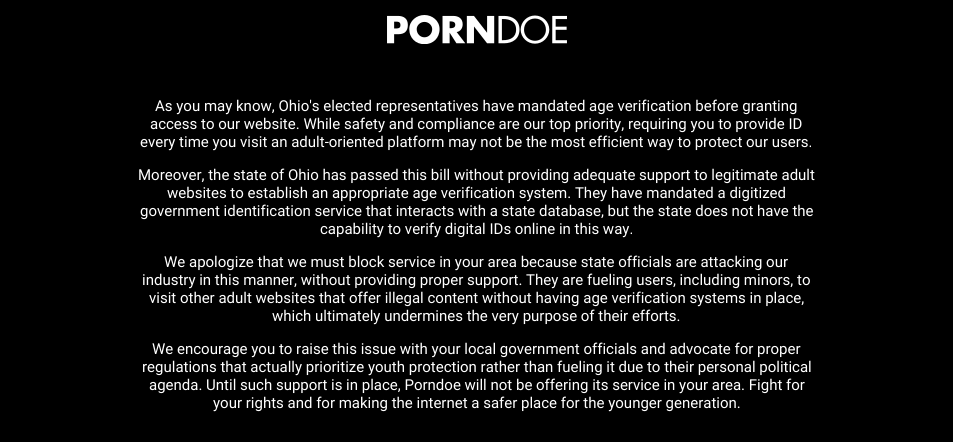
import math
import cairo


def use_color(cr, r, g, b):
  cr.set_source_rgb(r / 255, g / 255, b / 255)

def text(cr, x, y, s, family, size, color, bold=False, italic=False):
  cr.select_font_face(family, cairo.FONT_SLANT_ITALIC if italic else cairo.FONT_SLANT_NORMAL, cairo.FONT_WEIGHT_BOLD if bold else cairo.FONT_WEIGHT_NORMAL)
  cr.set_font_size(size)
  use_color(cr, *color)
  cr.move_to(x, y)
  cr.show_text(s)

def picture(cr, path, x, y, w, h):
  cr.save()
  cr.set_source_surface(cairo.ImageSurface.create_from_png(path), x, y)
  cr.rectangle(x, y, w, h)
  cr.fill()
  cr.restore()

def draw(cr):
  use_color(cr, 0, 0, 0)
  cr.paint()
  picture(cr, "img_01.png", 387, 15, 180, 29)
  text(cr, 155, 111, "As you may know, Ohio's elected representatives have mandated age verification before granting", "Roboto", 15, (255, 255, 255))
  text(cr, 150, 129, "access to our website. While safety and compliance are our top priority, requiring you to provide ID", "Roboto", 15, (255, 255, 255))
  text(cr, 140, 147, "every time you visit an adult-oriented platform may not be the most efficient way to protect our users.", "Roboto", 15, (255, 255, 255))
  text(cr, 138, 180, "Moreover, the state of Ohio has passed this bill without providing adequate support to legitimate adult", "Roboto", 15, (255, 255, 255))
  text(cr, 167, 198, "websites to establish an appropriate age verification system. They have mandated a digitized", "Roboto", 15, (255, 255, 255))
  text(cr, 140, 216, "government identification service that interacts with a state database, but the state does not have the", "Roboto", 15, (255, 255, 255))
  text(cr, 320, 234, "capability to verify digital IDs online in this way.", "Roboto", 15, (255, 255, 255))
  text(cr, 164, 267, "We apologize that we must block service in your area because state officials are attacking our", "Roboto", 15, (255, 255, 255))
  text(cr, 142, 285, "industry in this manner, without providing proper support. They are fueling users, including minors, to", "Roboto", 15, (255, 255, 255))
  text(cr, 149, 303, "visit other adult websites that offer illegal content without having age verification systems in place,", "Roboto", 15, (255, 255, 255))
  text(cr, 272, 321, "which ultimately undermines the very purpose of their efforts.", "Roboto", 15, (255, 255, 255))
  text(cr, 152, 354, "We encourage you to raise this issue with your local government officials and advocate for proper", "Roboto", 15, (255, 255, 255))
  text(cr, 142, 372, "regulations that actually prioritize youth protection rather than fueling it due to their personal political", "Roboto", 15, (255, 255, 255))
  text(cr, 149, 390, "agenda. Until such support is in place, Porndoe will not be offering its service in your area. Fight for", "Roboto", 15, (255, 255, 255))
  text(cr, 213, 408, "your rights and for making the internet a safer place for the younger generation.", "Roboto", 15, (255, 255, 255))


surface = cairo.ImageSurface(cairo.FORMAT_RGB24, 953, 442)
cr = cairo.Context(surface)
options = cairo.FontOptions()
options.set_hint_metrics(cairo.HINT_METRICS_OFF)
options.set_hint_style(cairo.HINT_STYLE_NONE)
cr.set_font_options(options)
cr.set_miter_limit(4)
draw(cr)
surface.write_to_png("out.png")
